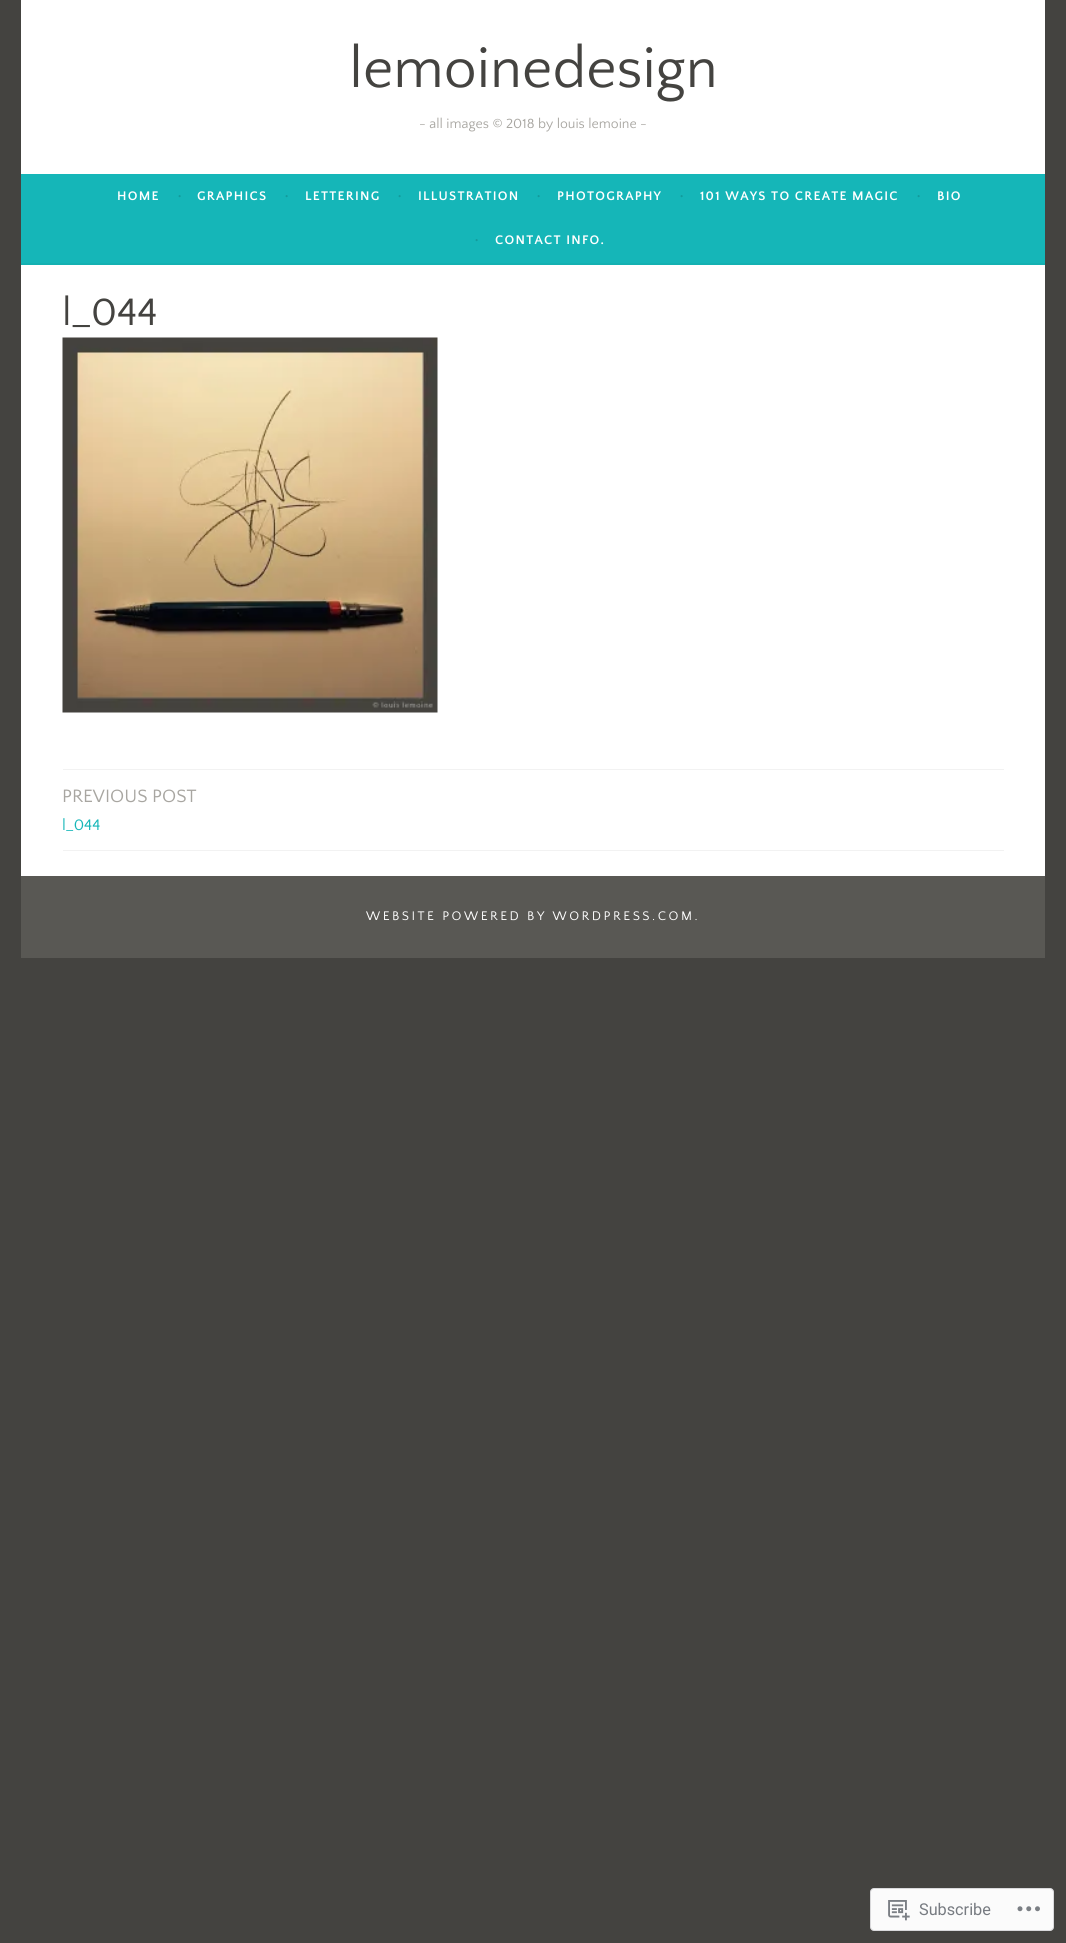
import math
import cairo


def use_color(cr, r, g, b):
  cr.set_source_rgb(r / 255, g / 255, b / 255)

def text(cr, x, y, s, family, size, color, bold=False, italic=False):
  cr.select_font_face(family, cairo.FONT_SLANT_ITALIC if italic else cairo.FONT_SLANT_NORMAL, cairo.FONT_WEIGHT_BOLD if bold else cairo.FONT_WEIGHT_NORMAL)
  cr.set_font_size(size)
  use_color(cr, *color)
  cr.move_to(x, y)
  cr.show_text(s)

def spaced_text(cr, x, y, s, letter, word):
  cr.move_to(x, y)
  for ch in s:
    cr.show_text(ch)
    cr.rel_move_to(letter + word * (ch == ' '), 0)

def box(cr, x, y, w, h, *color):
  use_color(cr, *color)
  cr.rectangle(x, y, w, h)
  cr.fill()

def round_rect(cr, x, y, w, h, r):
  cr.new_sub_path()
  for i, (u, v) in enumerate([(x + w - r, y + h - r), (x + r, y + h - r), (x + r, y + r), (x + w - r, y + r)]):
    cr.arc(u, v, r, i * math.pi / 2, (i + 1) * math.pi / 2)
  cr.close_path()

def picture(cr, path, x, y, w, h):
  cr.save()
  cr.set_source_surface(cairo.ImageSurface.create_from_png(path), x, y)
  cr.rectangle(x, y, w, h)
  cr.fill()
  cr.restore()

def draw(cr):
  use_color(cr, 68, 67, 64)
  cr.paint()
  box(cr, 21, 0, 1024, 174, 255, 255, 255)
  box(cr, 21, 174, 1024, 89, 21, 182, 184)
  box(cr, 21, 263, 1024, 2, 20, 177, 178)
  box(cr, 21, 265, 1024, 611, 255, 255, 255)
  picture(cr, "img_01.png", 62, 337, 376, 376)
  box(cr, 63, 769, 941, 1, 242, 242, 242)
  box(cr, 63, 850, 941, 1, 242, 242, 242)
  box(cr, 21, 876, 1024, 82, 89, 88, 84)
  use_color(cr, 251, 251, 251)
  round_rect(cr, 870.5, 1888.5, 183, 42, 3.5)
  cr.fill_preserve()
  use_color(cr, 217, 217, 219)
  cr.set_line_width(1)
  cr.stroke()
  picture(cr, "img_02.png", 888, 1900, 22, 21)
  picture(cr, "img_03.png", 1017, 1906, 23, 6)
  text(cr, 349, 87, "lemoinedesign", "Quattrocento Sans", 58.75, (68, 67, 64))
  text(cr, 419, 128, "- all images © 2018 by louis lemoine -", "Quattrocento Sans", 14, (168, 166, 161))
  cr.select_font_face("Quattrocento Sans", cairo.FONT_SLANT_NORMAL, cairo.FONT_WEIGHT_BOLD)
  cr.set_font_size(13.1)
  use_color(cr, 255, 255, 255)
  spaced_text(cr, 117, 200, "HOME", 1.25, 0)
  text(cr, 177, 200, "•", "Quattrocento Sans", 16, (18, 155, 156))
  cr.select_font_face("Quattrocento Sans", cairo.FONT_SLANT_NORMAL, cairo.FONT_WEIGHT_BOLD)
  cr.set_font_size(13.1)
  use_color(cr, 255, 255, 255)
  spaced_text(cr, 197, 200, "GRAPHICS", 1.25, 0)
  text(cr, 284, 200, "•", "Quattrocento Sans", 16, (18, 155, 156))
  cr.select_font_face("Quattrocento Sans", cairo.FONT_SLANT_NORMAL, cairo.FONT_WEIGHT_BOLD)
  cr.set_font_size(13.1)
  use_color(cr, 255, 255, 255)
  spaced_text(cr, 305, 200, "LETTERING", 1.25, 0)
  text(cr, 397, 200, "•", "Quattrocento Sans", 16, (18, 155, 156))
  cr.select_font_face("Quattrocento Sans", cairo.FONT_SLANT_NORMAL, cairo.FONT_WEIGHT_BOLD)
  cr.set_font_size(13.1)
  use_color(cr, 255, 255, 255)
  spaced_text(cr, 418, 200, "ILLUSTRATION", 1.25, 0)
  text(cr, 536, 200, "•", "Quattrocento Sans", 16, (18, 155, 156))
  cr.select_font_face("Quattrocento Sans", cairo.FONT_SLANT_NORMAL, cairo.FONT_WEIGHT_BOLD)
  cr.set_font_size(13.1)
  use_color(cr, 255, 255, 255)
  spaced_text(cr, 557, 200, "PHOTOGRAPHY", 1.25, 0)
  text(cr, 679, 200, "•", "Quattrocento Sans", 16, (18, 155, 156))
  cr.select_font_face("Quattrocento Sans", cairo.FONT_SLANT_NORMAL, cairo.FONT_WEIGHT_BOLD)
  cr.set_font_size(13.1)
  use_color(cr, 255, 255, 255)
  spaced_text(cr, 700, 200, "101 WAYS TO CREATE MAGIC", 1.25, 0)
  text(cr, 916, 200, "•", "Quattrocento Sans", 16, (18, 155, 156))
  cr.select_font_face("Quattrocento Sans", cairo.FONT_SLANT_NORMAL, cairo.FONT_WEIGHT_BOLD)
  cr.set_font_size(13.1)
  use_color(cr, 255, 255, 255)
  spaced_text(cr, 937, 200, "BIO", 1.25, 0)
  text(cr, 474, 244, "•", "Quattrocento Sans", 16, (18, 155, 156))
  cr.select_font_face("Quattrocento Sans", cairo.FONT_SLANT_NORMAL, cairo.FONT_WEIGHT_BOLD)
  cr.set_font_size(13.1)
  use_color(cr, 255, 255, 255)
  spaced_text(cr, 495, 244, "CONTACT INFO.", 1.25, 0)
  text(cr, 62, 325, "l_044", "Quattrocento Sans", 40, (68, 67, 64))
  text(cr, 62, 802, "PREVIOUS POST", "Quattrocento Sans", 18.75, (168, 166, 161))
  text(cr, 62, 830, "l_044", "Quattrocento Sans", 16, (21, 182, 184))
  cr.set_font_size(13.1)
  use_color(cr, 255, 255, 255)
  spaced_text(cr, 366, 920, "WEBSITE POWERED BY WORDPRESS.COM.", 2.5, 0)
  text(cr, 919, 1915, "Subscribe", "Roboto", 16.25, (119, 123, 129))


surface = cairo.ImageSurface(cairo.FORMAT_RGB24, 1066, 1943)
cr = cairo.Context(surface)
options = cairo.FontOptions()
options.set_hint_metrics(cairo.HINT_METRICS_OFF)
options.set_hint_style(cairo.HINT_STYLE_NONE)
cr.set_font_options(options)
cr.set_miter_limit(4)
draw(cr)
surface.write_to_png("out.png")
